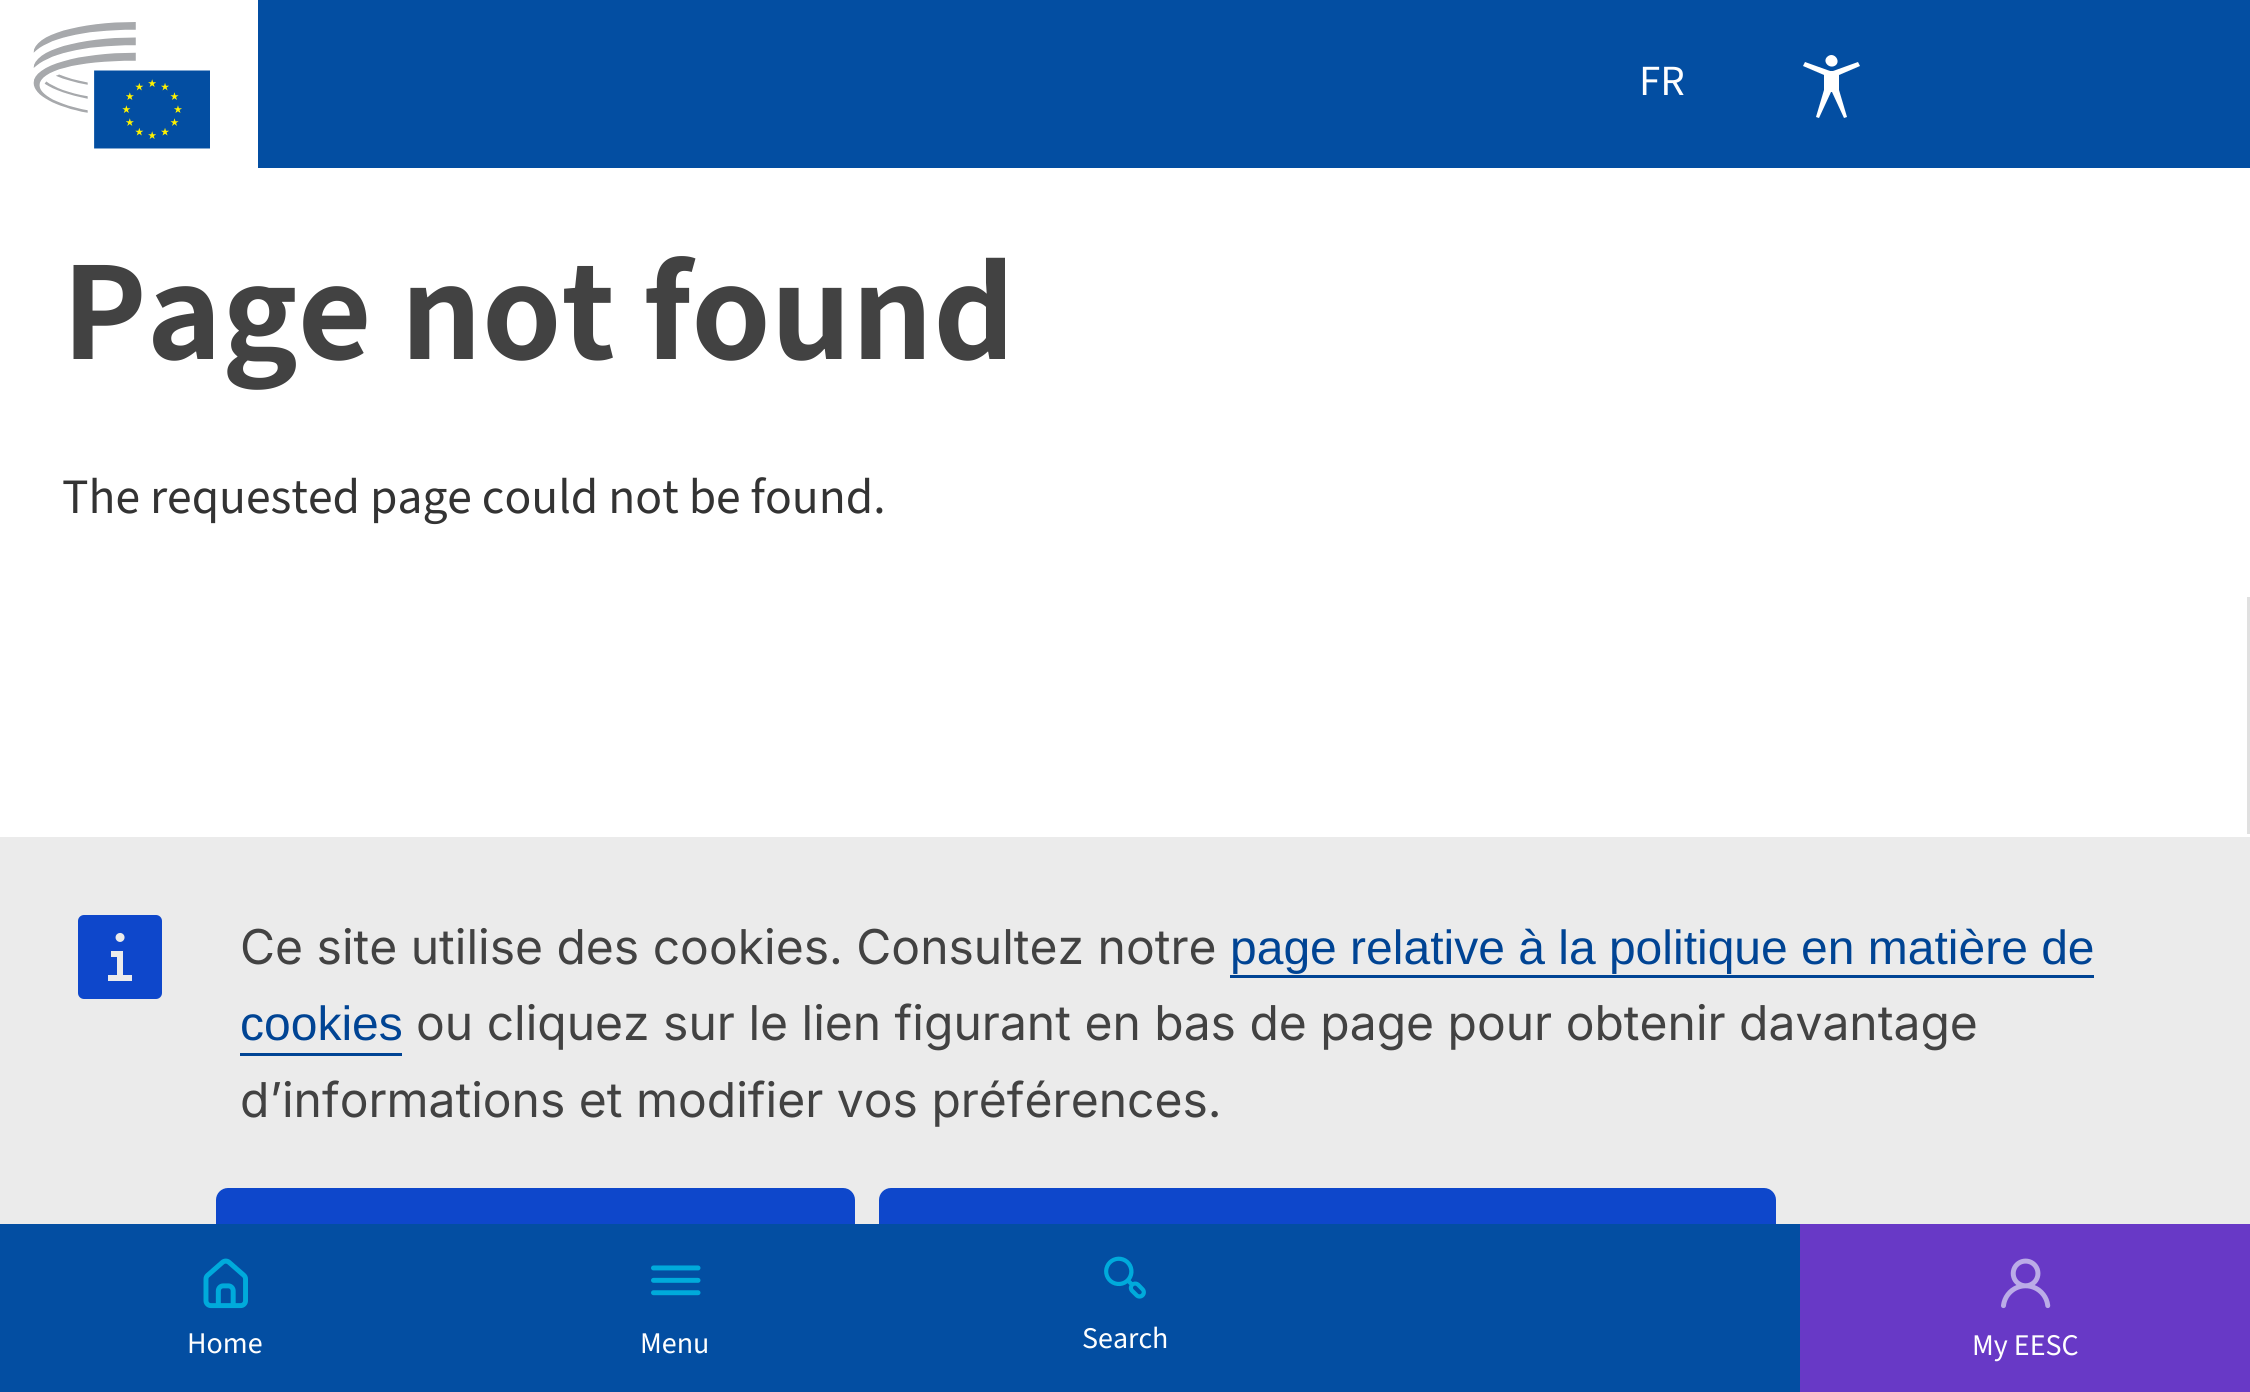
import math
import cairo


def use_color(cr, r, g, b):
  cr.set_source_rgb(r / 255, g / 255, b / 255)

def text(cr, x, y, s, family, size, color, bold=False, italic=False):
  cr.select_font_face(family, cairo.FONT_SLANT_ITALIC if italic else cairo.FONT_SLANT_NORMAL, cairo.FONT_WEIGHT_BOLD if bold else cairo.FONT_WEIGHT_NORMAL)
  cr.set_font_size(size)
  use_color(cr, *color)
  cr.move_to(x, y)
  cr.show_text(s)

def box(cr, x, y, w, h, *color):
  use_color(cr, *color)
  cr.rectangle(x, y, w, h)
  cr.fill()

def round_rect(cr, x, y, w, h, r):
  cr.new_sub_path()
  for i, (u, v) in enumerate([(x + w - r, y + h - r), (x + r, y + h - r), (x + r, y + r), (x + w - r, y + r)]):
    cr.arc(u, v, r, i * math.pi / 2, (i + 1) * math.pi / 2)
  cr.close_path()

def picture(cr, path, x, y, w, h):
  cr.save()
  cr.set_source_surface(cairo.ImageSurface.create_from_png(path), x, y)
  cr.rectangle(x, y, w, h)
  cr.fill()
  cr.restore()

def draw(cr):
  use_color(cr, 255, 255, 255)
  cr.paint()
  picture(cr, "img_01.png", 33, 22, 177, 127)
  box(cr, 258, 0, 1992, 168, 3, 78, 162)
  box(cr, 0, 837, 2250, 387, 235, 235, 235)
  use_color(cr, 14, 71, 203)
  round_rect(cr, 216, 1188, 639, 132, 12)
  cr.fill()
  round_rect(cr, 879, 1188, 897, 132, 12)
  cr.fill()
  box(cr, 0, 1224, 1800, 168, 3, 78, 162)
  use_color(cr, 255, 255, 255)
  cr.new_path()
  cr.move_to(1827, 57)
  cr.curve_to(1822, 62, 1830, 70, 1836, 65)
  cr.curve_to(1841, 60, 1833, 51, 1827, 57)
  cr.close_path()
  cr.move_to(1860, 66)
  cr.line_to(1839, 75)
  cr.line_to(1839, 90)
  cr.line_to(1847, 117)
  cr.line_to(1844, 118)
  cr.line_to(1832, 92)
  cr.line_to(1831, 92)
  cr.line_to(1819, 118)
  cr.line_to(1816, 117)
  cr.line_to(1824, 90)
  cr.line_to(1824, 75)
  cr.line_to(1803, 66)
  cr.line_to(1805, 62)
  cr.line_to(1830, 71)
  cr.line_to(1833, 71)
  cr.line_to(1858, 62)
  cr.close_path()
  cr.fill()
  picture(cr, "img_02.png", 203, 1258, 45, 51)
  picture(cr, "img_03.png", 651, 1265, 50, 31)
  picture(cr, "img_04.png", 1104, 1256, 42, 43)
  box(cr, 1800, 1224, 450, 168, 104, 57, 198)
  picture(cr, "img_05.png", 2001, 1258, 50, 51)
  box(cr, 2247, 597, 3, 237, 224, 224, 224)
  picture(cr, "img_06.png", 78, 915, 84, 84)
  box(cr, 1230, 975, 864, 3, 0, 68, 148)
  box(cr, 240, 1053, 162, 3, 0, 68, 148)
  text(cr, 1639, 95, "FR", "Source Sans 3", 43, (254, 254, 254))
  text(cr, 187, 1353, "Home", "Source Sans 3", 30, (254, 254, 254))
  text(cr, 640, 1353, "Menu", "Source Sans 3", 30, (254, 254, 254))
  text(cr, 1082, 1348, "Search", "Source Sans 3", 30, (254, 254, 254))
  text(cr, 1972, 1355, "My EESC", "Source Sans 3", 30, (254, 254, 254))
  text(cr, 62, 359, "Page not found", "Source Sans 3 SemiBold", 144, (66, 66, 66))
  text(cr, 62, 513, "The requested page could not be found.", "Source Sans 3", 49.5, (51, 51, 51))
  text(cr, 240, 964, "Ce site utilise des cookies. Consultez notre", "Inter", 48, (66, 66, 66))
  text(cr, 1230, 964, "page relative à la politique en matière de", "Liberation Sans", 48, (0, 68, 148))
  text(cr, 240, 1040, "cookies", "Liberation Sans", 48, (0, 68, 148))
  text(cr, 416, 1040, "ou cliquez sur le lien figurant en bas de page pour obtenir davantage", "Inter", 48, (66, 66, 66))
  text(cr, 240, 1117, "d’informations et modifier vos préférences.", "Inter", 48, (66, 66, 66))


surface = cairo.ImageSurface(cairo.FORMAT_RGB24, 2250, 1392)
cr = cairo.Context(surface)
options = cairo.FontOptions()
options.set_hint_metrics(cairo.HINT_METRICS_OFF)
options.set_hint_style(cairo.HINT_STYLE_NONE)
cr.set_font_options(options)
cr.set_miter_limit(4)
draw(cr)
surface.write_to_png("out.png")
